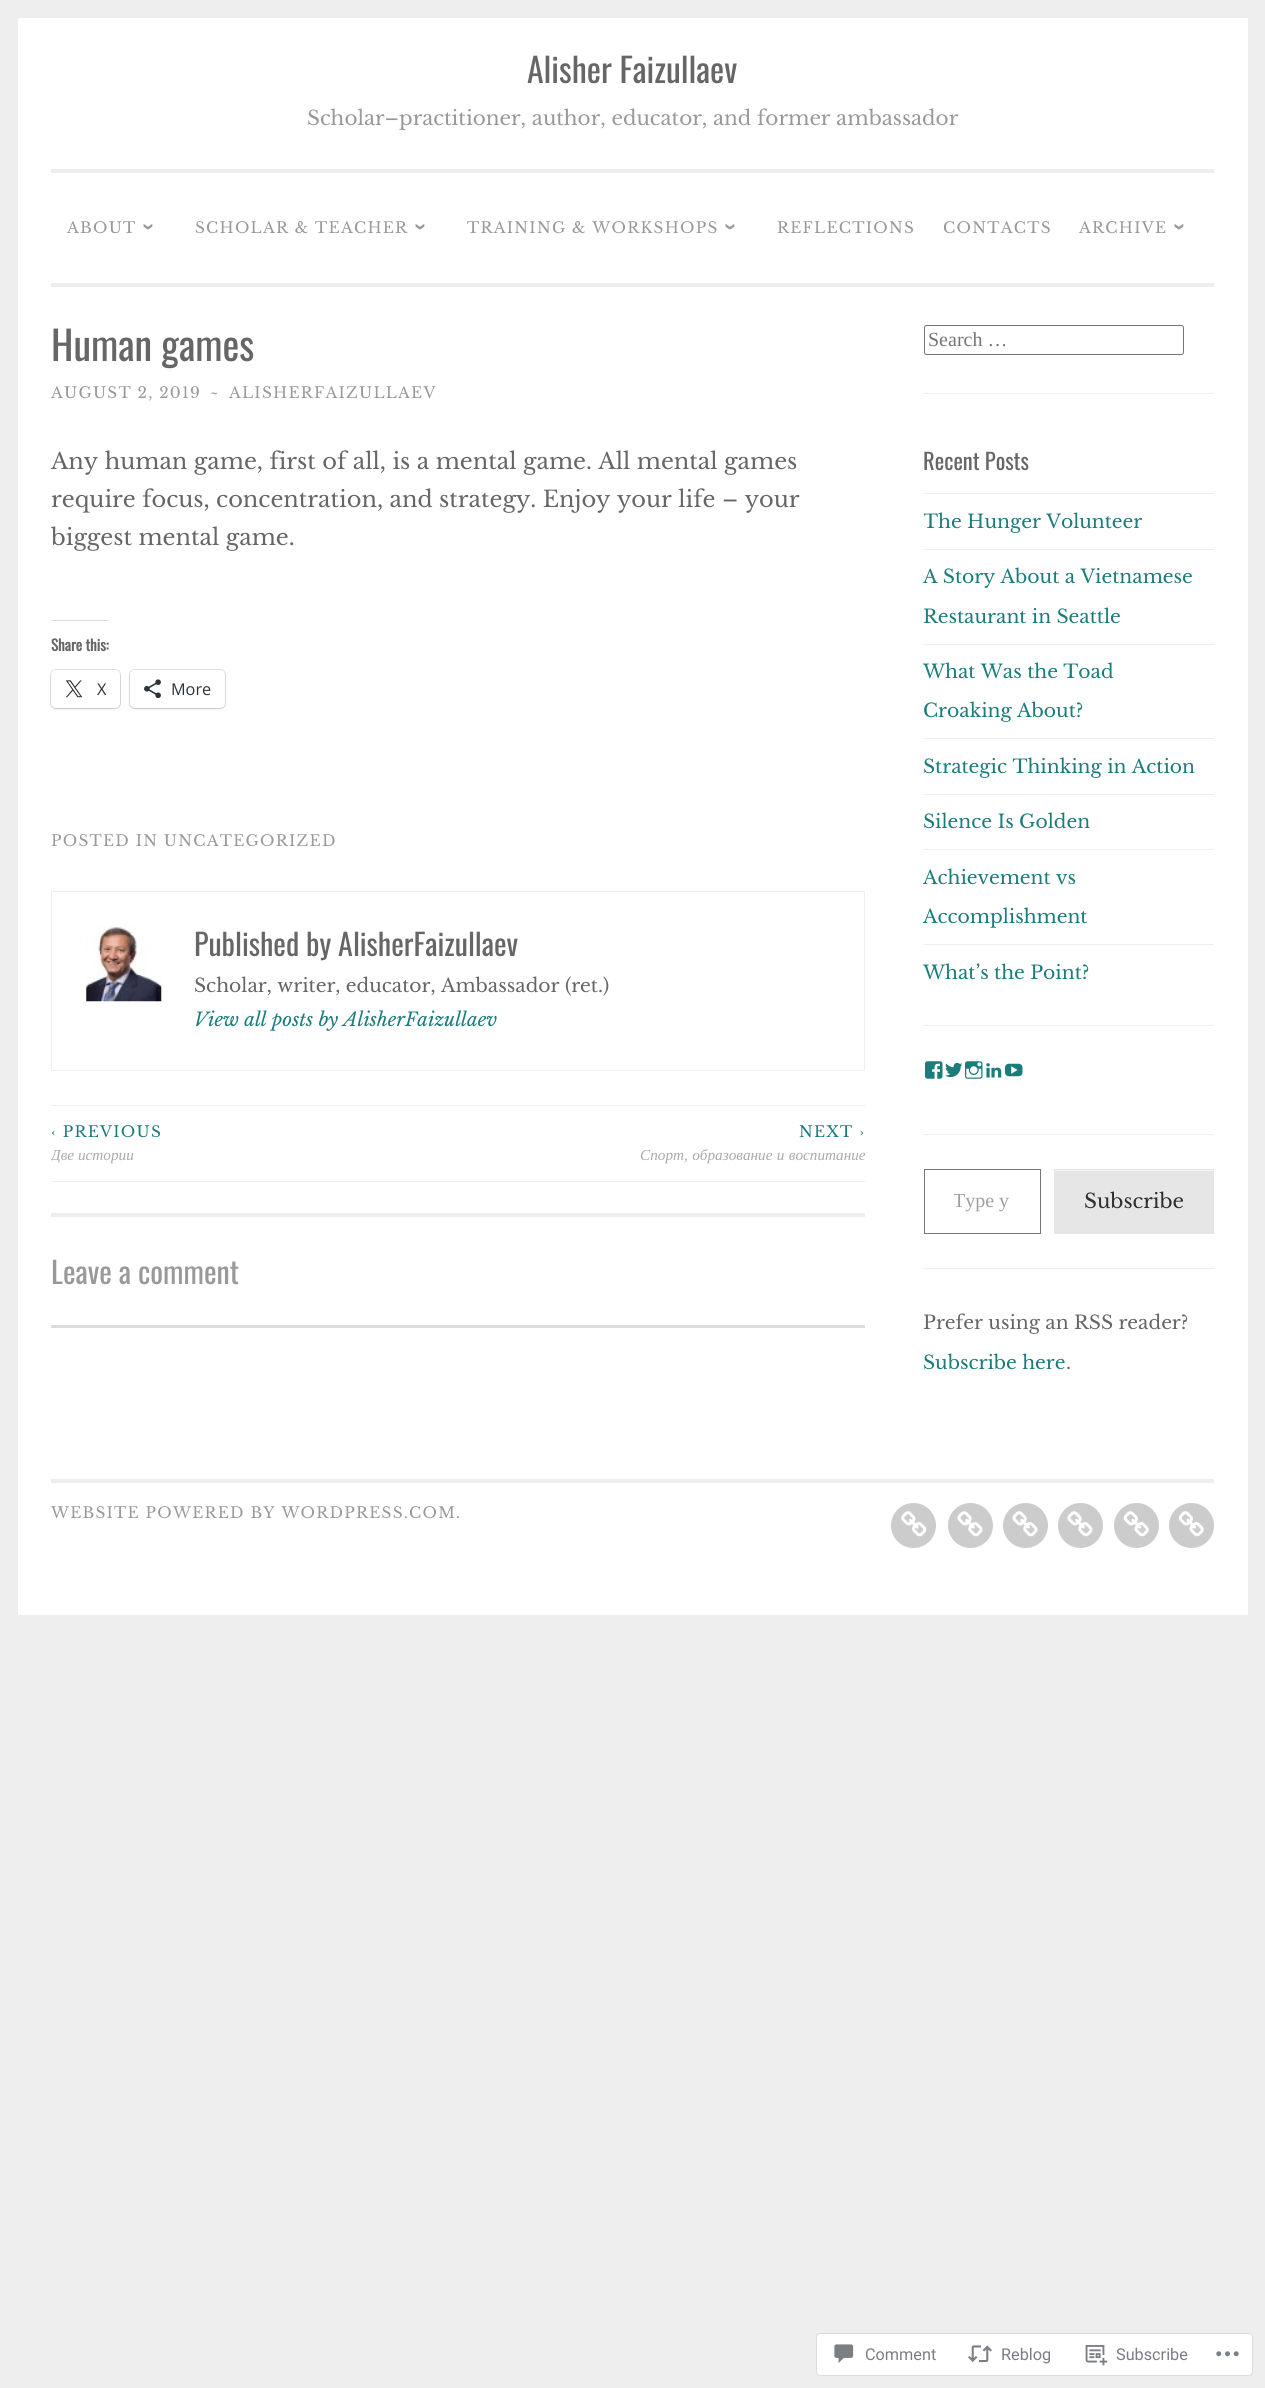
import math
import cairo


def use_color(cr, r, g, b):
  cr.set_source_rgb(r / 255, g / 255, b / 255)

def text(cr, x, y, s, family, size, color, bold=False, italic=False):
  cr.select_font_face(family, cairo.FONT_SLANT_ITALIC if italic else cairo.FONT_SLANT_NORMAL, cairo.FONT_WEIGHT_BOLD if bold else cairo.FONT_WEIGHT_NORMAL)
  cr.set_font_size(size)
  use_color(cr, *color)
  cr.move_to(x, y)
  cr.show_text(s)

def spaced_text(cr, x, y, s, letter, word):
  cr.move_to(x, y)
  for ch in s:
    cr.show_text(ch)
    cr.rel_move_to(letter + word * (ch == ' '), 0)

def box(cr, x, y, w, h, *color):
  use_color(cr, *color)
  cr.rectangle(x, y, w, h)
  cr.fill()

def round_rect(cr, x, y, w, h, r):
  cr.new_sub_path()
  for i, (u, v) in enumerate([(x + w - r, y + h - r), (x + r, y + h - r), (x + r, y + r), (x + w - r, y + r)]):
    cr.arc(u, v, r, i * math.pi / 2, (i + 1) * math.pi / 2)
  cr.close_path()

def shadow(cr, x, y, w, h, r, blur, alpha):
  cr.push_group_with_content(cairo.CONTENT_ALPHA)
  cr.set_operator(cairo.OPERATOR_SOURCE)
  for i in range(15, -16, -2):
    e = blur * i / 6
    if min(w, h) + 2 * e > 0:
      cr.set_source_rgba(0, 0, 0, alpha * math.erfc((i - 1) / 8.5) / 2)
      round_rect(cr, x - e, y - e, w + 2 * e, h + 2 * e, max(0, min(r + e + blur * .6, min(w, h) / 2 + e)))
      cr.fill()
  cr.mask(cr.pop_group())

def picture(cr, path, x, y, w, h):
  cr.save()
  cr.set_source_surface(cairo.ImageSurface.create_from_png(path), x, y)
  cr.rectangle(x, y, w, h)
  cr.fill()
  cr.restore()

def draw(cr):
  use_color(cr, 238, 238, 238)
  cr.paint()
  box(cr, 18, 18, 1230, 1597, 255, 255, 255)
  box(cr, 51, 283, 1163, 4, 238, 238, 238)
  box(cr, 51, 169, 1163, 4, 238, 238, 238)
  box(cr, 51, 620, 58, 1, 220, 220, 222)
  round_rect(cr, 50.5, 669.5, 70, 39, 5.5)
  use_color(cr, 224, 224, 224)
  cr.set_line_width(1)
  cr.stroke()
  use_color(cr, 0, 0, 0)
  shadow(cr, 51, 671, 69, 38, 5, 1, 0.12)
  use_color(cr, 255, 255, 255)
  round_rect(cr, 51, 670, 69, 38, 5)
  cr.fill()
  picture(cr, "img_01.png", 65, 680, 18, 18)
  round_rect(cr, 129.5, 669.5, 96, 39, 5.5)
  use_color(cr, 224, 224, 224)
  cr.stroke()
  use_color(cr, 0, 0, 0)
  shadow(cr, 130, 671, 95, 38, 5, 1, 0.12)
  use_color(cr, 255, 255, 255)
  round_rect(cr, 130, 670, 95, 38, 5)
  cr.fill()
  picture(cr, "img_02.png", 144, 679, 17, 20)
  cr.rectangle(51.5, 891.5, 813, 179)
  use_color(cr, 238, 238, 238)
  cr.stroke()
  picture(cr, "img_03.png", 86, 926, 76, 76)
  box(cr, 51, 1105, 814, 1, 238, 238, 238)
  box(cr, 51, 1181, 814, 1, 238, 238, 238)
  box(cr, 51, 1213, 814, 4, 238, 238, 238)
  box(cr, 51, 1325, 814, 3, 220, 220, 222)
  box(cr, 924, 393, 290, 1, 238, 238, 238)
  round_rect(cr, 924.5, 325.5, 259, 29, 2)
  use_color(cr, 118, 118, 118)
  cr.stroke()
  box(cr, 924, 1025, 290, 1, 238, 238, 238)
  box(cr, 924, 493, 290, 1, 238, 238, 238)
  box(cr, 924, 549, 290, 1, 238, 238, 238)
  box(cr, 924, 644, 290, 1, 238, 238, 238)
  box(cr, 924, 738, 290, 1, 238, 238, 238)
  box(cr, 924, 794, 290, 1, 238, 238, 238)
  box(cr, 924, 849, 290, 1, 238, 238, 238)
  box(cr, 924, 944, 290, 1, 238, 238, 238)
  box(cr, 924, 1134, 290, 1, 238, 238, 238)
  picture(cr, "img_04.png", 925, 1061, 18, 18)
  picture(cr, "img_05.png", 945, 1062, 18, 16)
  picture(cr, "img_06.png", 965, 1061, 18, 18)
  picture(cr, "img_07.png", 986, 1063, 16, 15)
  picture(cr, "img_08.png", 1005, 1063, 18, 14)
  box(cr, 924, 1268, 290, 1, 238, 238, 238)
  cr.rectangle(924.5, 1169.5, 116, 64)
  use_color(cr, 118, 118, 118)
  cr.stroke()
  box(cr, 1054, 1169, 160, 65, 230, 230, 230)
  box(cr, 1055, 1170, 158, 1, 243, 243, 243)
  box(cr, 51, 1479, 1163, 4, 238, 238, 238)
  use_color(cr, 204, 204, 204)
  cr.arc(913.5, 1525.5, 22.5, 0, 2 * math.pi)
  cr.fill()
  picture(cr, "img_09.png", 901, 1511, 26, 26)
  cr.arc(970.5, 1525.5, 22.5, 0, 2 * math.pi)
  cr.fill()
  picture(cr, "img_10.png", 957, 1511, 26, 26)
  cr.arc(1025.5, 1525.5, 22.5, 0, 2 * math.pi)
  cr.fill()
  picture(cr, "img_10.png", 1012, 1511, 26, 26)
  cr.arc(1080.5, 1525.5, 22.5, 0, 2 * math.pi)
  cr.fill()
  picture(cr, "img_10.png", 1067, 1511, 26, 26)
  cr.arc(1136.5, 1525.5, 22.5, 0, 2 * math.pi)
  cr.fill()
  picture(cr, "img_11.png", 1123, 1511, 26, 26)
  cr.arc(1191.5, 1525.5, 22.5, 0, 2 * math.pi)
  cr.fill()
  picture(cr, "img_11.png", 1178, 1511, 26, 26)
  use_color(cr, 255, 255, 255)
  round_rect(cr, 816.5, 2333.5, 436, 42, 3.5)
  cr.fill_preserve()
  use_color(cr, 220, 220, 222)
  cr.stroke()
  picture(cr, "img_12.png", 834, 2344, 20, 19)
  picture(cr, "img_13.png", 968, 2345, 24, 18)
  picture(cr, "img_14.png", 1085, 2345, 23, 21)
  picture(cr, "img_15.png", 1216, 2351, 23, 6)
  text(cr, 527, 83, "Alisher Faizullaev", "Oswald", 33.75, (102, 102, 102))
  text(cr, 307, 125, "Scholar–practitioner, author, educator, and former ambassador", "Libre Baskerville", 20, (153, 153, 153))
  cr.set_font_size(15.25)
  spaced_text(cr, 67, 233, "ABOUT", 1.25, 0)
  cr.select_font_face("Liberation Sans", cairo.FONT_SLANT_NORMAL, cairo.FONT_WEIGHT_BOLD)
  cr.set_font_size(22.5)
  cr.save()
  cr.translate(142, 223)
  cr.rotate(90 * math.pi / 180)
  spaced_text(cr, 0, 0, "›", 1.25, 0)
  cr.restore()
  cr.select_font_face("Libre Baskerville")
  cr.set_font_size(15.25)
  spaced_text(cr, 195, 233, "SCHOLAR & TEACHER", 1.25, 0)
  cr.select_font_face("Liberation Sans", cairo.FONT_SLANT_NORMAL, cairo.FONT_WEIGHT_BOLD)
  cr.set_font_size(22.5)
  cr.save()
  cr.translate(414, 223)
  cr.rotate(90 * math.pi / 180)
  spaced_text(cr, 0, 0, "›", 1.25, 0)
  cr.restore()
  cr.select_font_face("Libre Baskerville")
  cr.set_font_size(15.25)
  spaced_text(cr, 467, 233, "TRAINING & WORKSHOPS", 1.25, 0)
  cr.select_font_face("Liberation Sans", cairo.FONT_SLANT_NORMAL, cairo.FONT_WEIGHT_BOLD)
  cr.set_font_size(22.5)
  cr.save()
  cr.translate(724, 223)
  cr.rotate(90 * math.pi / 180)
  spaced_text(cr, 0, 0, "›", 1.25, 0)
  cr.restore()
  cr.select_font_face("Libre Baskerville")
  cr.set_font_size(15.25)
  spaced_text(cr, 777, 233, "REFLECTIONS", 1.25, 0)
  spaced_text(cr, 943, 233, "CONTACTS", 1.25, 0)
  spaced_text(cr, 1079, 233, "ARCHIVE", 1.25, 0)
  cr.select_font_face("Liberation Sans", cairo.FONT_SLANT_NORMAL, cairo.FONT_WEIGHT_BOLD)
  cr.set_font_size(22.5)
  cr.save()
  cr.translate(1173, 223)
  cr.rotate(90 * math.pi / 180)
  spaced_text(cr, 0, 0, "›", 1.25, 0)
  cr.restore()
  text(cr, 51, 361, "Human games", "Oswald", 40, (102, 102, 102))
  cr.select_font_face("Libre Baskerville")
  cr.set_font_size(15.25)
  use_color(cr, 153, 153, 153)
  spaced_text(cr, 51, 398, "AUGUST 2, 2019", 1.25, 0)
  spaced_text(cr, 210, 398, "~", 1.25, 0)
  spaced_text(cr, 229, 398, "ALISHERFAIZULLAEV", 1.25, 0)
  text(cr, 51, 469, "Any human game, first of all, is a mental game. All mental games", "Libre Baskerville", 22.5, (102, 102, 102))
  text(cr, 51, 507, "require focus, concentration, and strategy. Enjoy your life – your", "Libre Baskerville", 22.5, (102, 102, 102))
  text(cr, 51, 545, "biggest mental game.", "Libre Baskerville", 22.5, (102, 102, 102))
  text(cr, 51, 651, "Share this:", "Oswald", 15, (102, 102, 102), bold=True)
  text(cr, 97, 695, "X", "Open Sans", 16.25, (44, 51, 56))
  text(cr, 171, 695, "More", "Open Sans", 16.25, (44, 51, 56))
  cr.select_font_face("Libre Baskerville")
  cr.set_font_size(15.25)
  use_color(cr, 153, 153, 153)
  spaced_text(cr, 51, 846, "POSTED IN UNCATEGORIZED", 1.25, 0)
  text(cr, 194, 956, "Published by AlisherFaizullaev", "Oswald", 30, (102, 102, 102))
  text(cr, 194, 992, "Scholar, writer, educator, Ambassador (ret.)", "Libre Baskerville", 18.75, (102, 102, 102))
  text(cr, 194, 1026, "View all posts by AlisherFaizullaev", "Libre Baskerville", 18.75, (28, 124, 124), italic=True)
  cr.select_font_face("Libre Baskerville")
  cr.set_font_size(15.25)
  spaced_text(cr, 51, 1137, "‹ PREVIOUS", 1.25, 0)
  cr.save()
  cr.rectangle(51, 1106, 814, 75)
  cr.clip()
  text(cr, 51, 1160, "Две истории", "Liberation Serif", 15.25, (170, 170, 170), italic=True)
  cr.restore()
  spaced_text(cr, 799, 1137, "NEXT ›", 1.25, 0)
  cr.select_font_face("Liberation Serif", cairo.FONT_SLANT_ITALIC)
  use_color(cr, 170, 170, 170)
  spaced_text(cr, 640, 1160, "Спорт, образование и воспитание", 0, 0.5)
  text(cr, 51, 1284, "Leave a comment", "Oswald", 30, (153, 153, 153))
  text(cr, 928, 346, "Search …", "Liberation Serif", 20, (117, 117, 117))
  text(cr, 923, 470, "Recent Posts", "Oswald", 22.5, (102, 102, 102))
  cr.save()
  cr.rectangle(924, 428, 290, 597)
  cr.clip()
  text(cr, 923, 528, "The Hunger Volunteer", "Libre Baskerville", 18.75, (28, 124, 124))
  cr.restore()
  text(cr, 923, 583, "A Story About a Vietnamese", "Libre Baskerville", 18.75, (28, 124, 124))
  text(cr, 923, 623, "Restaurant in Seattle", "Libre Baskerville", 18.75, (28, 124, 124))
  text(cr, 923, 678, "What Was the Toad", "Libre Baskerville", 18.75, (28, 124, 124))
  text(cr, 923, 717, "Croaking About?", "Libre Baskerville", 18.75, (28, 124, 124))
  text(cr, 923, 773, "Strategic Thinking in Action", "Libre Baskerville", 18.75, (28, 124, 124))
  text(cr, 923, 828, "Silence Is Golden", "Libre Baskerville", 18.75, (28, 124, 124))
  text(cr, 923, 884, "Achievement vs", "Libre Baskerville", 18.75, (28, 124, 124))
  text(cr, 923, 923, "Accomplishment", "Libre Baskerville", 18.75, (28, 124, 124))
  text(cr, 923, 979, "What’s the Point?", "Libre Baskerville", 18.75, (28, 124, 124))
  cr.save()
  cr.rectangle(954, 1190, 57, 23)
  cr.clip()
  text(cr, 953, 1207, "Type y", "Liberation Serif", 20, (160, 160, 160))
  cr.restore()
  text(cr, 1084, 1208, "Subscribe", "Libre Baskerville", 20, (46, 46, 46))
  text(cr, 923, 1329, "Prefer using an RSS reader?", "Libre Baskerville", 18.75, (102, 102, 102))
  text(cr, 923, 1369, "Subscribe here", "Libre Baskerville", 18.75, (28, 124, 124))
  text(cr, 1066, 1369, ".", "Libre Baskerville", 18.75, (102, 102, 102))
  cr.set_font_size(15.25)
  use_color(cr, 153, 153, 153)
  spaced_text(cr, 51, 1518, "WEBSITE POWERED BY WORDPRESS.COM", 1.25, 0)
  spaced_text(cr, 456, 1518, ".", 1.25, 0)
  text(cr, 865, 2360, "Comment", "Roboto", 16.25, (122, 126, 132))
  text(cr, 1001, 2360, "Reblog", "Roboto", 16.25, (122, 126, 132))
  text(cr, 1116, 2360, "Subscribe", "Roboto", 16.25, (122, 126, 132))


surface = cairo.ImageSurface(cairo.FORMAT_RGB24, 1265, 2388)
cr = cairo.Context(surface)
options = cairo.FontOptions()
options.set_hint_metrics(cairo.HINT_METRICS_OFF)
options.set_hint_style(cairo.HINT_STYLE_NONE)
cr.set_font_options(options)
cr.set_miter_limit(4)
draw(cr)
surface.write_to_png("out.png")
